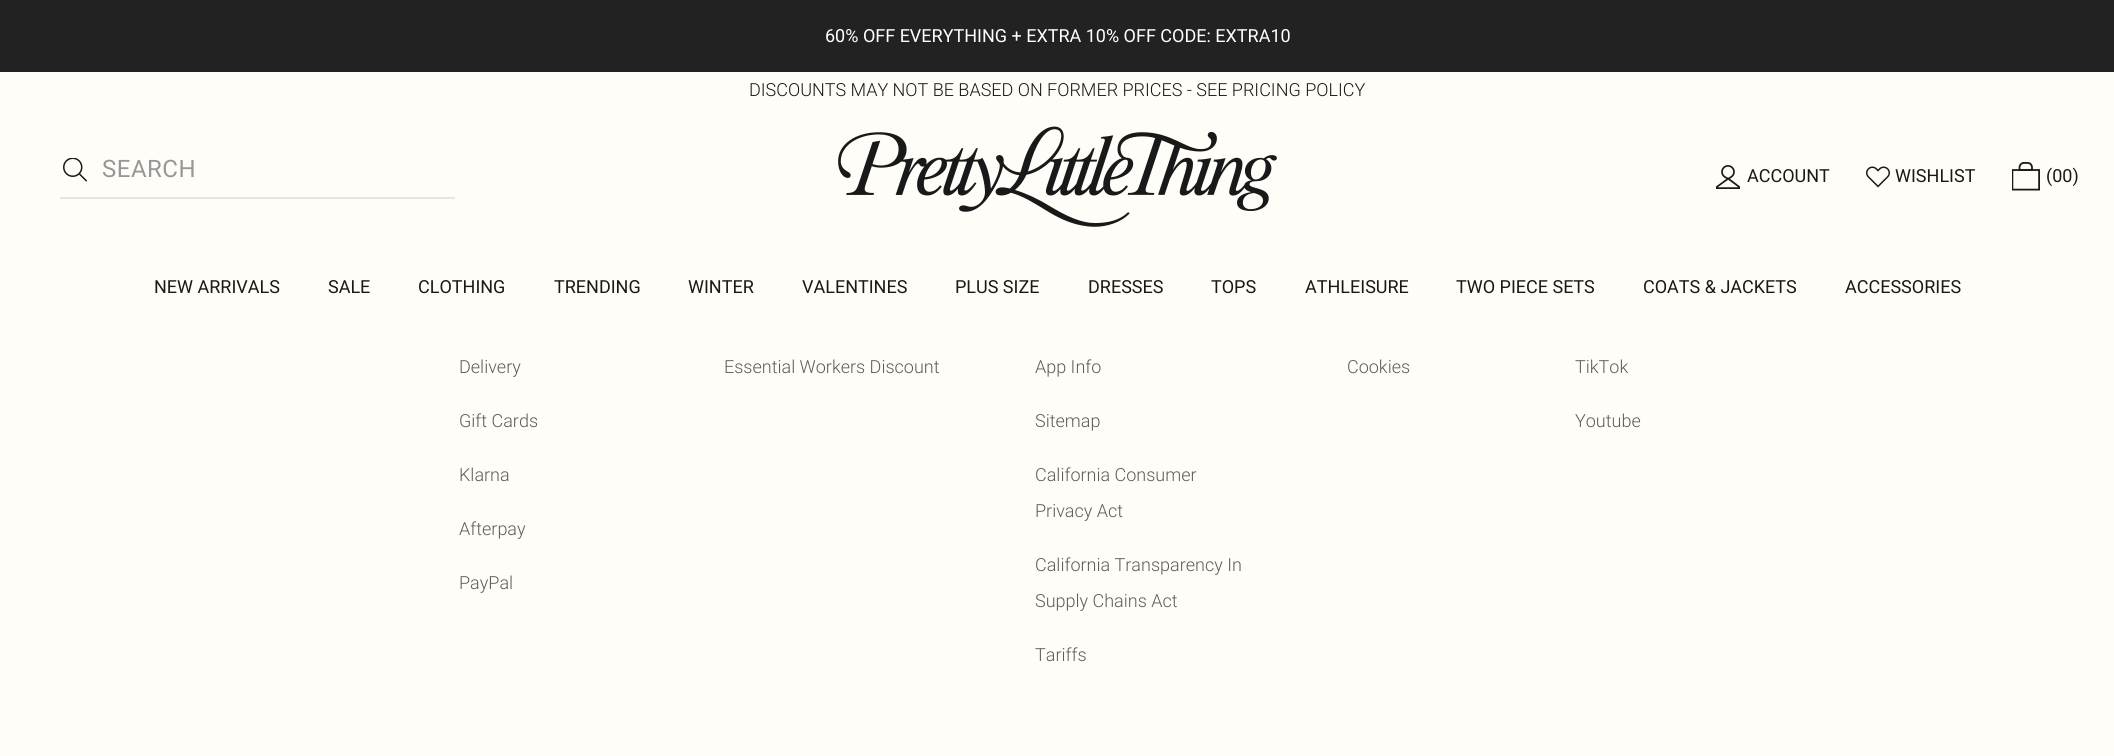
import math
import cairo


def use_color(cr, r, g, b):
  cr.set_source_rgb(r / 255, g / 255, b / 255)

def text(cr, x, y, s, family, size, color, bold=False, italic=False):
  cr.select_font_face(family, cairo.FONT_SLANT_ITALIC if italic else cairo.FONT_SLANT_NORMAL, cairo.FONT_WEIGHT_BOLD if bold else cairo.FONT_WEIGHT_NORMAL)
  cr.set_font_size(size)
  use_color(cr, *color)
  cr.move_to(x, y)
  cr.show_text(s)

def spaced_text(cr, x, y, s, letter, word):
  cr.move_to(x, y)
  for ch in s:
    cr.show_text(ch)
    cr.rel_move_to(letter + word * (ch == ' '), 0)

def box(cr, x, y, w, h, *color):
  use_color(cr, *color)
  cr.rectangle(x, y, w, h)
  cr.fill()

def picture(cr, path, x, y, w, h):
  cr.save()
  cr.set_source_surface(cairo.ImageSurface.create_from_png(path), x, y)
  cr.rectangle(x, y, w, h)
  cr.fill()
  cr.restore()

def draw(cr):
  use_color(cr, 255, 253, 247)
  cr.paint()
  box(cr, 0, 0, 2114, 72, 34, 34, 34)
  box(cr, 60, 197, 395, 2, 232, 230, 225)
  picture(cr, "img_01.png", 63, 158, 24, 24)
  picture(cr, "img_02.png", 838, 126, 439, 101)
  picture(cr, "img_03.png", 1716, 165, 24, 24)
  picture(cr, "img_04.png", 1866, 166, 24, 22)
  picture(cr, "img_05.png", 2012, 162, 28, 29)
  text(cr, 825, 42, "60% OFF EVERYTHING + EXTRA 10% OFF CODE: EXTRA10", "Roboto", 18, (255, 255, 255))
  text(cr, 749, 96, "DISCOUNTS MAY NOT BE BASED ON FORMER PRICES - SEE PRICING POLICY", "Roboto Light", 18, (25, 25, 25))
  cr.select_font_face("Roboto")
  cr.set_font_size(24)
  use_color(cr, 151, 151, 151)
  spaced_text(cr, 102, 177, "SEARCH", 0.5, 0)
  text(cr, 1747, 182, "ACCOUNT", "Roboto", 18, (25, 25, 25))
  text(cr, 1895, 182, "WISHLIST", "Roboto", 18, (25, 25, 25))
  text(cr, 2046, 182, "(00)", "Roboto", 18, (25, 25, 25))
  text(cr, 154, 293, "NEW ARRIVALS", "Roboto", 18, (25, 25, 25))
  text(cr, 328, 293, "SALE", "Roboto", 18, (25, 25, 25))
  text(cr, 418, 293, "CLOTHING", "Roboto", 18, (25, 25, 25))
  text(cr, 554, 293, "TRENDING", "Roboto", 18, (25, 25, 25))
  text(cr, 688, 293, "WINTER", "Roboto", 18, (25, 25, 25))
  text(cr, 802, 293, "VALENTINES", "Roboto", 18, (25, 25, 25))
  text(cr, 955, 293, "PLUS SIZE", "Roboto", 18, (25, 25, 25))
  text(cr, 1088, 293, "DRESSES", "Roboto", 18, (25, 25, 25))
  text(cr, 1211, 293, "TOPS", "Roboto", 18, (25, 25, 25))
  text(cr, 1305, 293, "ATHLEISURE", "Roboto", 18, (25, 25, 25))
  text(cr, 1456, 293, "TWO PIECE SETS", "Roboto", 18, (25, 25, 25))
  text(cr, 1643, 293, "COATS & JACKETS", "Roboto", 18, (25, 25, 25))
  text(cr, 1845, 293, "ACCESSORIES", "Roboto", 18, (25, 25, 25))
  text(cr, 459, 373, "Delivery", "Roboto Light", 18, (93, 93, 93))
  text(cr, 459, 427, "Gift Cards", "Roboto Light", 18, (93, 93, 93))
  text(cr, 459, 481, "Klarna", "Roboto Light", 18, (93, 93, 93))
  text(cr, 459, 535, "Afterpay", "Roboto Light", 18, (93, 93, 93))
  text(cr, 459, 589, "PayPal", "Roboto Light", 18, (93, 93, 93))
  text(cr, 724, 373, "Essential Workers Discount", "Roboto Light", 18, (93, 93, 93))
  text(cr, 1035, 373, "App Info", "Roboto Light", 18, (93, 93, 93))
  text(cr, 1035, 427, "Sitemap", "Roboto Light", 18, (93, 93, 93))
  text(cr, 1035, 481, "California Consumer", "Roboto Light", 18, (93, 93, 93))
  text(cr, 1035, 517, "Privacy Act", "Roboto Light", 18, (93, 93, 93))
  text(cr, 1035, 571, "California Transparency In", "Roboto Light", 18, (93, 93, 93))
  text(cr, 1035, 607, "Supply Chains Act", "Roboto Light", 18, (93, 93, 93))
  text(cr, 1035, 661, "Tariffs", "Roboto Light", 18, (93, 93, 93))
  text(cr, 1347, 373, "Cookies", "Roboto Light", 18, (93, 93, 93))
  text(cr, 1575, 373, "TikTok", "Roboto Light", 18, (93, 93, 93))
  text(cr, 1575, 427, "Youtube", "Roboto Light", 18, (93, 93, 93))


surface = cairo.ImageSurface(cairo.FORMAT_RGB24, 2114, 756)
cr = cairo.Context(surface)
options = cairo.FontOptions()
options.set_hint_metrics(cairo.HINT_METRICS_OFF)
options.set_hint_style(cairo.HINT_STYLE_NONE)
cr.set_font_options(options)
cr.set_miter_limit(4)
draw(cr)
surface.write_to_png("out.png")
